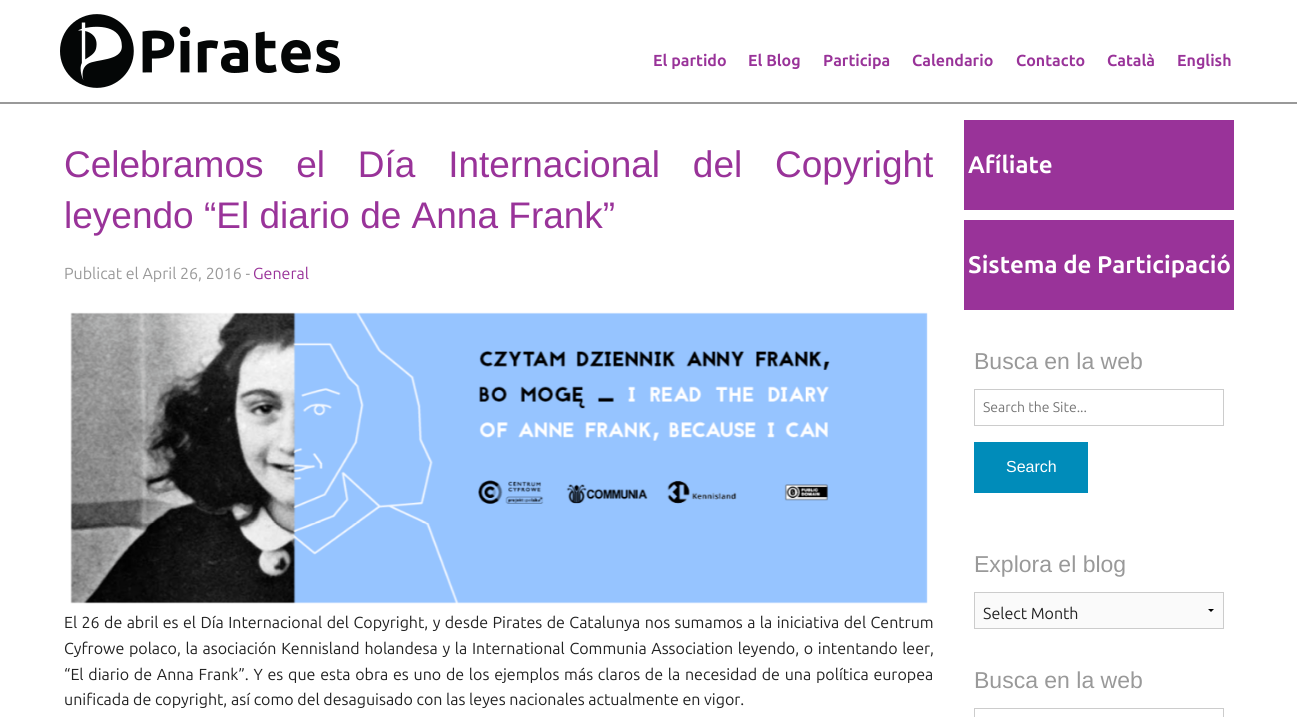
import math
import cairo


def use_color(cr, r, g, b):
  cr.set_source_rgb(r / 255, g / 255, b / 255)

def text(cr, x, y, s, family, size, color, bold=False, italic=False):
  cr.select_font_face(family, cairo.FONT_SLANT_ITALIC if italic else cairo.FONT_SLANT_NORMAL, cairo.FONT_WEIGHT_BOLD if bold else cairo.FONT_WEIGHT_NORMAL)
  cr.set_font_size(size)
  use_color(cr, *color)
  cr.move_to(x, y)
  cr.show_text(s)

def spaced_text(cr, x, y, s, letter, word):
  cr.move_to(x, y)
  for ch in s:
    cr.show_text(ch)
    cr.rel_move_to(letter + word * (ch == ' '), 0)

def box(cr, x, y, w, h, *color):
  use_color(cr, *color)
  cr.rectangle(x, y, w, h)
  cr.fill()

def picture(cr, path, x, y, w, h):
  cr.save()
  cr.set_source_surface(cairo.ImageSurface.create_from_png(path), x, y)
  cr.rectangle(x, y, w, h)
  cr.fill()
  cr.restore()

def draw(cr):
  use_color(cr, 255, 255, 255)
  cr.paint()
  picture(cr, "img_01.png", 60, 14, 280, 74)
  box(cr, 0, 102, 1297, 2, 153, 153, 153)
  picture(cr, "img_02.png", 70, 312, 858, 292)
  box(cr, 964, 120, 270, 90, 153, 51, 153)
  box(cr, 964, 220, 270, 90, 153, 51, 153)
  cr.rectangle(974.5, 389.5, 249, 36)
  use_color(cr, 204, 204, 204)
  cr.set_line_width(1)
  cr.stroke()
  box(cr, 974, 442, 114, 51, 0, 140, 186)
  box(cr, 975, 593, 248, 35, 250, 250, 250)
  use_color(cr, 0, 0, 0)
  cr.new_path()
  cr.move_to(1214, 609)
  cr.line_to(1211, 612)
  cr.line_to(1208, 609)
  cr.close_path()
  cr.fill()
  cr.rectangle(974.5, 592.5, 249, 36)
  use_color(cr, 204, 204, 204)
  cr.stroke()
  cr.rectangle(974.5, 708.5, 249, 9)
  cr.stroke()
  text(cr, 653, 66, "El partido", "Ubuntu", 16, (153, 51, 153), bold=True)
  text(cr, 748, 66, "El Blog", "Ubuntu", 16, (153, 51, 153), bold=True)
  text(cr, 823, 66, "Participa", "Ubuntu", 16, (153, 51, 153), bold=True)
  text(cr, 912, 66, "Calendario", "Ubuntu", 16, (153, 51, 153), bold=True)
  text(cr, 1016, 66, "Contacto", "Ubuntu", 16, (153, 51, 153), bold=True)
  text(cr, 1107, 66, "Català", "Ubuntu", 16, (153, 51, 153), bold=True)
  text(cr, 1177, 66, "English", "Ubuntu", 16, (153, 51, 153), bold=True)
  cr.select_font_face("Liberation Sans")
  cr.set_font_size(37)
  spaced_text(cr, 64, 177, "Celebramos el Día Internacional del Copyright", 0, 22.5)
  text(cr, 64, 228, "leyendo “El diario de Anna Frank”", "Liberation Sans", 37, (153, 51, 153))
  text(cr, 64, 279, "Publicat el April 26, 2016 -", "Ubuntu", 16, (153, 153, 153))
  text(cr, 253, 279, "General", "Ubuntu", 16, (153, 51, 153))
  use_color(cr, 34, 34, 34)
  spaced_text(cr, 64, 628, "El 26 de abril es el Día Internacional del Copyright, y desde Pirates de Catalunya nos sumamos a la iniciativa del Centrum", 0, 0.75)
  spaced_text(cr, 64, 654, "Cyfrowe polaco, la asociación Kennisland holandesa y la International Communia Association leyendo, o intentando leer,", 0, 1)
  spaced_text(cr, 64, 680, "“El diario de Anna Frank”. Y es que esta obra es uno de los ejemplos más claros de la necesidad de una política europea", 0, 1.1)
  text(cr, 64, 705, "unificada de copyright, así como del desaguisado con las leyes nacionales actualmente en vigor.", "Ubuntu", 16, (34, 34, 34))
  text(cr, 968, 173, "Afíliate", "Ubuntu", 24, (255, 255, 255), bold=True)
  text(cr, 968, 273, "Sistema de Participació", "Ubuntu", 24, (255, 255, 255), bold=True)
  text(cr, 974, 369, "Busca en la web", "Liberation Sans", 23, (153, 153, 153))
  text(cr, 983, 412, "Search the Site...", "Ubuntu", 14, (117, 117, 117))
  text(cr, 1006, 472, "Search", "Liberation Sans", 16, (255, 255, 255))
  text(cr, 974, 572, "Explora el blog", "Liberation Sans", 23, (153, 153, 153))
  text(cr, 983, 619, "Select Month", "Ubuntu", 16, (34, 34, 34))
  text(cr, 974, 688, "Busca en la web", "Liberation Sans", 23, (153, 153, 153))


surface = cairo.ImageSurface(cairo.FORMAT_RGB24, 1297, 717)
cr = cairo.Context(surface)
options = cairo.FontOptions()
options.set_hint_metrics(cairo.HINT_METRICS_OFF)
options.set_hint_style(cairo.HINT_STYLE_NONE)
cr.set_font_options(options)
cr.set_miter_limit(4)
draw(cr)
surface.write_to_png("out.png")
